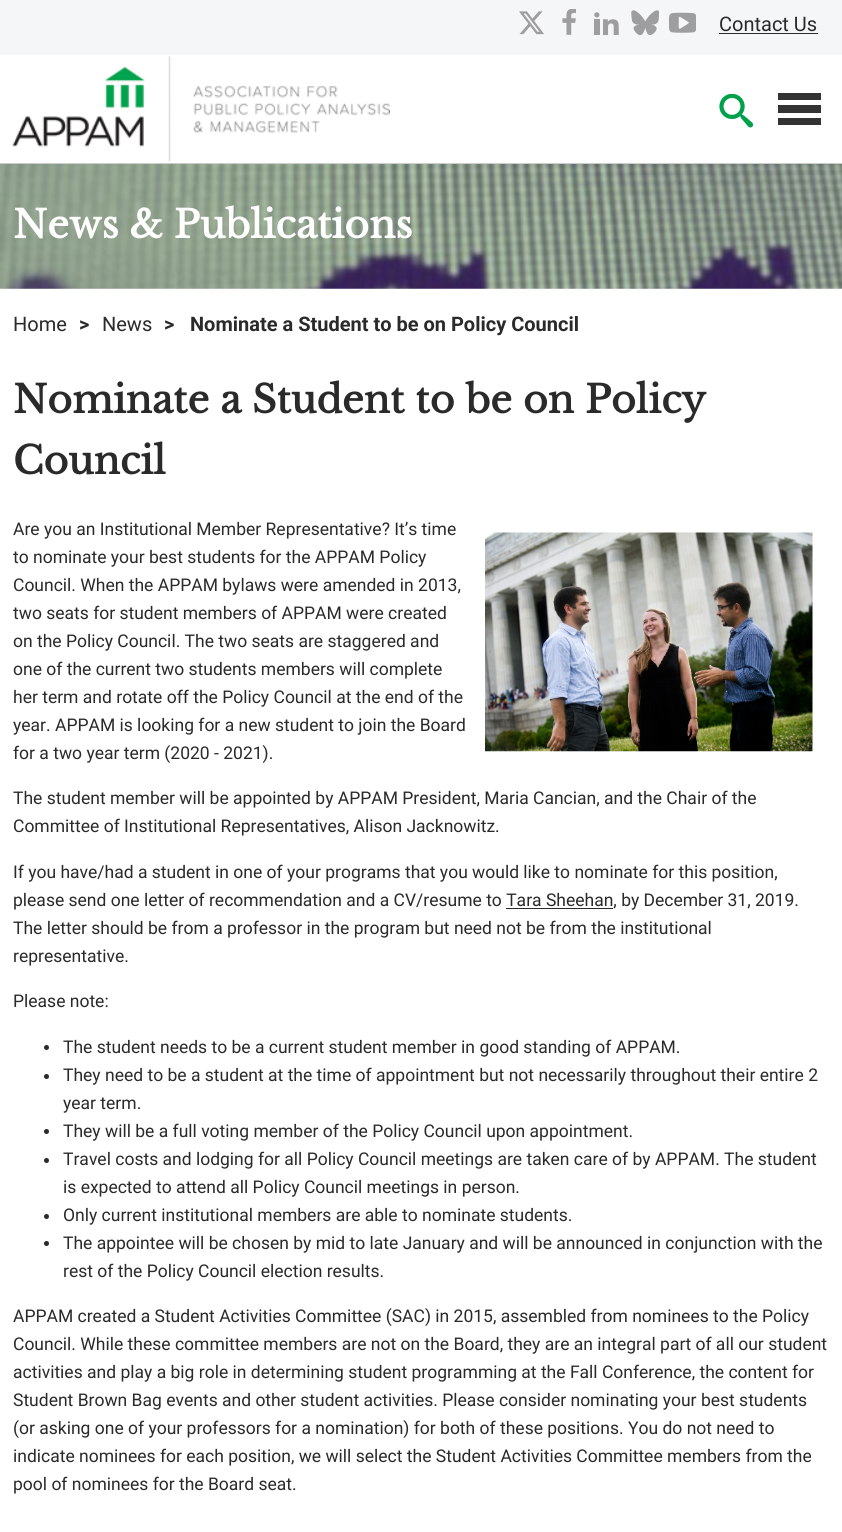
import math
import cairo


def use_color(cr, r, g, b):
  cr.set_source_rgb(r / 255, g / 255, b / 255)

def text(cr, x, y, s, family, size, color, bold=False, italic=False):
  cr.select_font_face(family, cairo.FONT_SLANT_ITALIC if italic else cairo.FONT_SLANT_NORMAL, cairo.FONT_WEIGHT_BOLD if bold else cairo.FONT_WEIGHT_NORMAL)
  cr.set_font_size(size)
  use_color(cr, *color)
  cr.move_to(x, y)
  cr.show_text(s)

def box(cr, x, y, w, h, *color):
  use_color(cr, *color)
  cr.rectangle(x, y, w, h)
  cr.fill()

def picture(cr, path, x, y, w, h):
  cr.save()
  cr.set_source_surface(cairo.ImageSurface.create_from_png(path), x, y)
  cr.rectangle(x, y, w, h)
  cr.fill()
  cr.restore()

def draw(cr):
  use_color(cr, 255, 255, 255)
  cr.paint()
  box(cr, 0, 163, 842, 1, 204, 204, 204)
  box(cr, 0, 0, 842, 55, 244, 246, 248)
  picture(cr, "img_01.png", 519, 11, 25, 24)
  picture(cr, "img_02.png", 562, 9, 14, 26)
  picture(cr, "img_03.png", 594, 12, 25, 23)
  picture(cr, "img_04.png", 631, 10, 28, 26)
  picture(cr, "img_05.png", 669, 12, 27, 21)
  box(cr, 719, 33, 99, 1, 42, 42, 42)
  picture(cr, "img_06.png", 719, 94, 35, 34)
  picture(cr, "img_07.png", 12, 56, 378, 106)
  box(cr, 778, 93, 43, 7, 51, 51, 51)
  box(cr, 778, 105, 43, 8, 51, 51, 51)
  box(cr, 778, 118, 43, 7, 51, 51, 51)
  picture(cr, "img_08.png", 0, 164, 842, 125)
  box(cr, 506, 908, 107, 1, 42, 42, 42)
  cr.arc(46.5, 1047.5, 2.5, 0, 2 * math.pi)
  cr.fill()
  cr.arc(46.5, 1076.5, 2.5, 0, 2 * math.pi)
  cr.fill()
  cr.arc(46.5, 1131.5, 2.5, 0, 2 * math.pi)
  cr.fill()
  cr.arc(46.5, 1160.5, 2.5, 0, 2 * math.pi)
  cr.fill()
  cr.arc(46.5, 1216.5, 2.5, 0, 2 * math.pi)
  cr.fill()
  cr.arc(46.5, 1243.5, 2.5, 0, 2 * math.pi)
  cr.fill()
  picture(cr, "img_09.png", 485, 532, 328, 220)
  text(cr, 719, 31, "Contact Us", "Roboto", 20, (42, 42, 42))
  text(cr, 13, 238, "News & Publications", "Libre Baskerville", 38, (255, 255, 255), bold=True)
  text(cr, 13, 331, "Home", "Roboto", 20, (42, 42, 42))
  text(cr, 79, 331, ">", "Roboto", 20, (42, 42, 42), bold=True)
  text(cr, 102, 331, "News", "Roboto", 20, (42, 42, 42))
  text(cr, 164, 331, ">", "Roboto", 20, (42, 42, 42), bold=True)
  text(cr, 190, 331, "Nominate a Student to be on Policy Council", "Roboto", 20, (42, 42, 42), bold=True)
  text(cr, 13, 413, "Nominate a Student to be on Policy", "Libre Baskerville", 38, (42, 42, 42), bold=True)
  text(cr, 13, 474, "Council", "Libre Baskerville", 38, (42, 42, 42), bold=True)
  text(cr, 13, 535, "Are you an Institutional Member Representative? It’s time", "Roboto", 17.5, (42, 42, 42))
  text(cr, 13, 563, "to nominate your best students for the APPAM Policy", "Roboto", 17.5, (42, 42, 42))
  text(cr, 13, 591, "Council. When the APPAM bylaws were amended in 2013,", "Roboto", 17.5, (42, 42, 42))
  text(cr, 13, 619, "two seats for student members of APPAM were created", "Roboto", 17.5, (42, 42, 42))
  text(cr, 13, 647, "on the Policy Council. The two seats are staggered and", "Roboto", 17.5, (42, 42, 42))
  text(cr, 13, 675, "one of the current two students members will complete", "Roboto", 17.5, (42, 42, 42))
  text(cr, 13, 703, "her term and rotate off the Policy Council at the end of the", "Roboto", 17.5, (42, 42, 42))
  text(cr, 13, 731, "year. APPAM is looking for a new student to join the Board", "Roboto", 17.5, (42, 42, 42))
  text(cr, 13, 759, "for a two year term (2020 - 2021).", "Roboto", 17.5, (42, 42, 42))
  text(cr, 13, 804, "The student member will be appointed by APPAM President, Maria Cancian, and the Chair of the", "Roboto", 17.5, (42, 42, 42))
  text(cr, 13, 832, "Committee of Institutional Representatives, Alison Jacknowitz.", "Roboto", 17.5, (42, 42, 42))
  text(cr, 13, 878, "If you have/had a student in one of your programs that you would like to nominate for this position,", "Roboto", 17.5, (42, 42, 42))
  text(cr, 13, 906, "please send one letter of recommendation and a CV/resume to Tara Sheehan, by December 31, 2019.", "Roboto", 17.5, (42, 42, 42))
  text(cr, 13, 934, "The letter should be from a professor in the program but need not be from the institutional", "Roboto", 17.5, (42, 42, 42))
  text(cr, 13, 962, "representative.", "Roboto", 17.5, (42, 42, 42))
  text(cr, 13, 1007, "Please note:", "Roboto", 17.5, (42, 42, 42))
  text(cr, 63, 1053, "The student needs to be a current student member in good standing of APPAM.", "Roboto", 17.5, (42, 42, 42))
  text(cr, 63, 1081, "They need to be a student at the time of appointment but not necessarily throughout their entire 2", "Roboto", 17.5, (42, 42, 42))
  text(cr, 63, 1109, "year term.", "Roboto", 17.5, (42, 42, 42))
  text(cr, 63, 1137, "They will be a full voting member of the Policy Council upon appointment.", "Roboto", 17.5, (42, 42, 42))
  text(cr, 63, 1165, "Travel costs and lodging for all Policy Council meetings are taken care of by APPAM. The student", "Roboto", 17.5, (42, 42, 42))
  text(cr, 63, 1193, "is expected to attend all Policy Council meetings in person.", "Roboto", 17.5, (42, 42, 42))
  text(cr, 63, 1221, "Only current institutional members are able to nominate students.", "Roboto", 17.5, (42, 42, 42))
  text(cr, 63, 1249, "The appointee will be chosen by mid to late January and will be announced in conjunction with the", "Roboto", 17.5, (42, 42, 42))
  text(cr, 63, 1277, "rest of the Policy Council election results.", "Roboto", 17.5, (42, 42, 42))
  text(cr, 13, 1322, "APPAM created a Student Activities Committee (SAC) in 2015, assembled from nominees to the Policy", "Roboto", 17.5, (42, 42, 42))
  text(cr, 13, 1350, "Council. While these committee members are not on the Board, they are an integral part of all our student", "Roboto", 17.5, (42, 42, 42))
  text(cr, 13, 1378, "activities and play a big role in determining student programming at the Fall Conference, the content for", "Roboto", 17.5, (42, 42, 42))
  text(cr, 13, 1406, "Student Brown Bag events and other student activities. Please consider nominating your best students", "Roboto", 17.5, (42, 42, 42))
  text(cr, 13, 1434, "(or asking one of your professors for a nomination) for both of these positions. You do not need to", "Roboto", 17.5, (42, 42, 42))
  text(cr, 13, 1462, "indicate nominees for each position, we will select the Student Activities Committee members from the", "Roboto", 17.5, (42, 42, 42))
  text(cr, 13, 1490, "pool of nominees for the Board seat.", "Roboto", 17.5, (42, 42, 42))


surface = cairo.ImageSurface(cairo.FORMAT_RGB24, 842, 1532)
cr = cairo.Context(surface)
options = cairo.FontOptions()
options.set_hint_metrics(cairo.HINT_METRICS_OFF)
options.set_hint_style(cairo.HINT_STYLE_NONE)
cr.set_font_options(options)
cr.set_miter_limit(4)
draw(cr)
surface.write_to_png("out.png")
